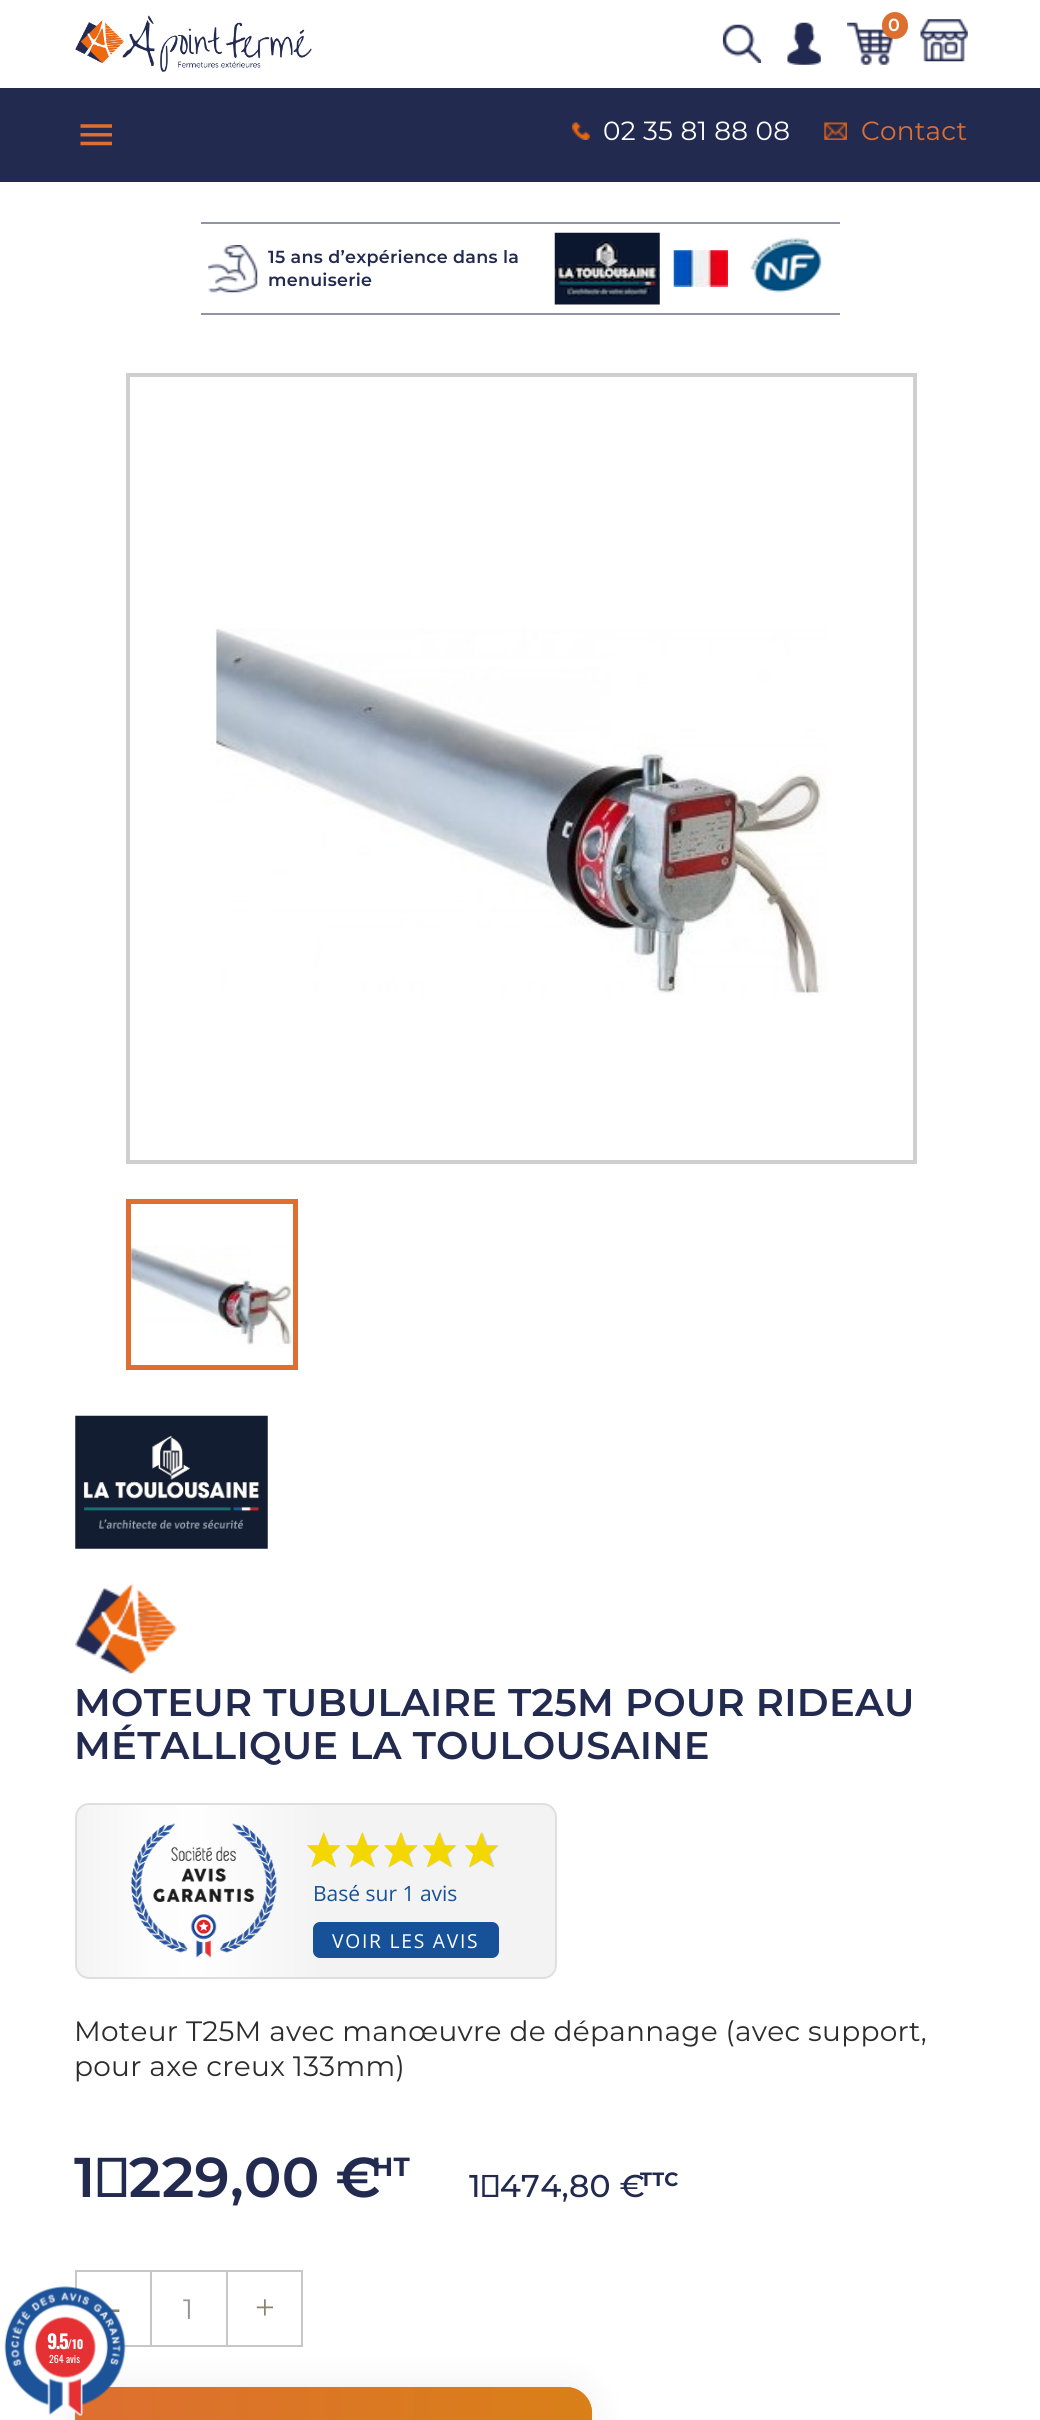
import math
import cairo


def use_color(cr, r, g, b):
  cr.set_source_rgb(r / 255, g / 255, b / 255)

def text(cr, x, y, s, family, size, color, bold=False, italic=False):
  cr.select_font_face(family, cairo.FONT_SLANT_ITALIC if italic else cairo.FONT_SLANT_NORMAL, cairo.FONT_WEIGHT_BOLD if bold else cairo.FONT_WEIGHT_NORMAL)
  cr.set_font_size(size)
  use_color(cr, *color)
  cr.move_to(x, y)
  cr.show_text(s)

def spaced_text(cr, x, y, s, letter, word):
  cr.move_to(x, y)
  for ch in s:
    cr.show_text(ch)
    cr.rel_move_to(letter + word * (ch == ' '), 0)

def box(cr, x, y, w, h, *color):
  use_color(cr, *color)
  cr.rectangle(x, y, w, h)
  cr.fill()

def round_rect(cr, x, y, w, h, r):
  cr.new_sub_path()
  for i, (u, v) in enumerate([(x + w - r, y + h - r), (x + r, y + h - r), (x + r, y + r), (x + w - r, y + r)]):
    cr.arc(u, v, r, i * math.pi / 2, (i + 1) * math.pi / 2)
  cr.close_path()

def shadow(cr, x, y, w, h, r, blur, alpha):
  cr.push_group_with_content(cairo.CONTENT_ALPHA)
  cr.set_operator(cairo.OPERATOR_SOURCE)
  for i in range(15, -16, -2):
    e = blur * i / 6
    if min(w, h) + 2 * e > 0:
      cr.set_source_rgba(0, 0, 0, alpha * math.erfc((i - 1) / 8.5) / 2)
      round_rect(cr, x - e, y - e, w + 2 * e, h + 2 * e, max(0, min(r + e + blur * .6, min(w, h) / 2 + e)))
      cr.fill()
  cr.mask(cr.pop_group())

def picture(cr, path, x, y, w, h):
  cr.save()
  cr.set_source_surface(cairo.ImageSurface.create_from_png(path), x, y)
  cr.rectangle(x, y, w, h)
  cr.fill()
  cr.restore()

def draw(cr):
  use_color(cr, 255, 255, 255)
  cr.paint()
  picture(cr, "img_01.png", 75, 15, 237, 57)
  picture(cr, "img_02.png", 722, 24, 40, 39)
  picture(cr, "img_03.png", 787, 22, 34, 43)
  picture(cr, "img_04.png", 847, 22, 47, 43)
  use_color(cr, 221, 111, 48)
  round_rect(cr, 882, 12, 26, 27, 13)
  cr.fill()
  picture(cr, "img_05.png", 920, 19, 48, 43)
  box(cr, 0, 88, 1040, 94, 35, 42, 79)
  picture(cr, "img_06.png", 80, 124, 32, 22)
  picture(cr, "img_07.png", 572, 122, 18, 18)
  picture(cr, "img_08.png", 824, 122, 23, 18)
  box(cr, 201, 222, 639, 2, 145, 148, 167)
  box(cr, 201, 313, 639, 2, 145, 148, 167)
  picture(cr, "img_09.png", 208, 245, 50, 48)
  picture(cr, "img_10.png", 554, 232, 106, 73)
  picture(cr, "img_11.png", 673, 250, 55, 37)
  picture(cr, "img_12.png", 750, 237, 72, 56)
  cr.rectangle(128, 375, 787, 787)
  use_color(cr, 207, 207, 207)
  cr.set_line_width(4)
  cr.stroke()
  picture(cr, "img_13.png", 211, 628, 616, 368)
  cr.rectangle(128.5, 1201.5, 167, 166)
  use_color(cr, 221, 111, 48)
  cr.set_line_width(5)
  cr.stroke()
  picture(cr, "img_14.png", 131, 1245, 161, 103)
  picture(cr, "img_15.png", 75, 1415, 193, 134)
  picture(cr, "img_16.png", 75, 1583, 102, 91)
  gradient = cairo.LinearGradient(75, 1891, 557, 1891)
  gradient.add_color_stop_rgba(0, 0.953, 0.953, 0.953, 1)
  gradient.add_color_stop_rgba(0.16, 0.992, 0.992, 0.992, 1)
  gradient.add_color_stop_rgba(0.26, 0.996, 0.996, 0.996, 1)
  gradient.add_color_stop_rgba(0.51, 0.953, 0.953, 0.953, 1)
  cr.set_source(gradient)
  round_rect(cr, 76, 1804, 480, 174, 13)
  cr.fill_preserve()
  use_color(cr, 223, 223, 223)
  cr.set_line_width(2)
  cr.stroke()
  picture(cr, "img_17.png", 131, 1823, 146, 135)
  picture(cr, "img_18.png", 307, 1832, 192, 36)
  picture(cr, "img_19.png", 307, 1832, 191, 36)
  use_color(cr, 23, 82, 152)
  round_rect(cr, 314, 1923, 184, 34, 6)
  cr.fill_preserve()
  cr.stroke()
  use_color(cr, 238, 238, 238)
  shadow(cr, 75, 2387, 517, 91, 26, 17.5, 1)
  cr.rectangle(76, 2271, 226, 75)
  use_color(cr, 199, 199, 199)
  cr.stroke()
  cr.rectangle(76, 2271, 75, 75)
  cr.stroke()
  cr.rectangle(227, 2271, 75, 75)
  cr.stroke()
  use_color(cr, 221, 111, 48)
  round_rect(cr, 75, 2387, 517, 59, 26)
  cr.fill()
  gradient = cairo.LinearGradient(-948, 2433, 77, 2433)
  gradient.add_color_stop_rgba(0, 0.867, 0.435, 0.188, 1)
  gradient.add_color_stop_rgba(0.51, 0.851, 0.502, 0.094, 1)
  gradient.add_color_stop_rgba(1, 0.867, 0.435, 0.188, 1)
  cr.set_source(gradient)
  cr.rectangle(75, 2410, 1, 10)
  cr.fill()
  cr.save()
  round_rect(cr, 75, 2387, 517, 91, 26)
  cr.clip()
  gradient = cairo.LinearGradient(77, 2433, 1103, 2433)
  gradient.add_color_stop_rgba(0, 0.867, 0.435, 0.188, 1)
  gradient.add_color_stop_rgba(0.51, 0.851, 0.502, 0.094, 1)
  gradient.add_color_stop_rgba(1, 0.867, 0.435, 0.188, 1)
  cr.set_source(gradient)
  cr.new_path()
  cr.move_to(77, 2387)
  cr.line_to(566, 2387)
  cr.curve_to(580.5, 2387, 592, 2398.5, 592, 2413)
  cr.line_to(592, 2420)
  cr.curve_to(592, 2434.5, 580.5, 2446, 566, 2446)
  cr.line_to(77, 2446)
  cr.close_path()
  cr.fill()
  cr.restore()
  cr.select_font_face("Montserrat SemiBold")
  cr.set_font_size(17.5)
  use_color(cr, 255, 255, 255)
  spaced_text(cr, 888, 31, "0", 0.28, 0)
  cr.select_font_face("Montserrat")
  cr.set_font_size(26.25)
  spaced_text(cr, 603, 140, "02 35 81 88 08", 0.28, 0)
  use_color(cr, 221, 111, 48)
  spaced_text(cr, 861, 140, "Contact", 0.28, 0)
  cr.select_font_face("Montserrat SemiBold")
  cr.set_font_size(17.5)
  use_color(cr, 35, 42, 79)
  spaced_text(cr, 268, 263, "15 ans d’expérience dans la", 0.28, 0)
  spaced_text(cr, 268, 286, "menuiserie", 0.28, 0)
  cr.set_font_size(38.5)
  spaced_text(cr, 74, 1716, "MOTEUR TUBULAIRE T25M POUR RIDEAU", 0.28, 0)
  spaced_text(cr, 74, 1759, "MÉTALLIQUE LA TOULOUSAINE", 0.28, 0)
  text(cr, 313, 1901, "Basé sur 1 avis", "Open Sans", 21, (23, 82, 152))
  cr.set_font_size(19.25)
  use_color(cr, 255, 255, 255)
  spaced_text(cr, 332, 1948, "VOIR LES AVIS", 1.75, 0)
  cr.select_font_face("Montserrat")
  cr.set_font_size(28)
  use_color(cr, 44, 44, 44)
  spaced_text(cr, 74, 2041, "Moteur T25M avec manœuvre de dépannage (avec support,", 0.28, 0)
  spaced_text(cr, 74, 2076, "pour axe creux 133mm)", 0.28, 0)
  cr.select_font_face("Montserrat SemiBold")
  cr.set_font_size(56)
  use_color(cr, 35, 42, 79)
  spaced_text(cr, 74, 2197, "1 229,00 €", 0.28, 0)
  cr.select_font_face("Montserrat", cairo.FONT_SLANT_NORMAL, cairo.FONT_WEIGHT_BOLD)
  cr.set_font_size(26.25)
  spaced_text(cr, 372, 2176, "HT", 0.28, 0)
  cr.select_font_face("Montserrat Medium")
  cr.set_font_size(31.5)
  spaced_text(cr, 469, 2197, "1 474,80 €", 0.28, 0)
  cr.select_font_face("Montserrat", cairo.FONT_SLANT_NORMAL, cairo.FONT_WEIGHT_BOLD)
  cr.set_font_size(19.25)
  spaced_text(cr, 640, 2186, "TTC", 0.28, 0)
  text(cr, 109, 2319, "-", "Liberation Serif", 35, (139, 132, 108))
  text(cr, 255, 2319, "+", "Liberation Serif", 35, (139, 132, 108))
  text(cr, 183, 2319, "1", "Montserrat", 28, (153, 149, 149))
  picture(cr, "img_20.png", 4, 2286, 122, 130)
  cr.select_font_face("Oswald", cairo.FONT_SLANT_NORMAL, cairo.FONT_WEIGHT_BOLD)
  cr.set_font_size(19.25)
  use_color(cr, 255, 255, 255)
  spaced_text(cr, 47, 2349, "9.5", -1.5, 0)
  text(cr, 67, 2349, "/10", "Oswald", 12, (255, 255, 255), bold=True)
  text(cr, 49, 2363, "264 avis", "Oswald", 10, (255, 255, 255))


surface = cairo.ImageSurface(cairo.FORMAT_RGB24, 1040, 2420)
cr = cairo.Context(surface)
options = cairo.FontOptions()
options.set_hint_metrics(cairo.HINT_METRICS_OFF)
options.set_hint_style(cairo.HINT_STYLE_NONE)
cr.set_font_options(options)
cr.set_miter_limit(4)
draw(cr)
surface.write_to_png("out.png")
